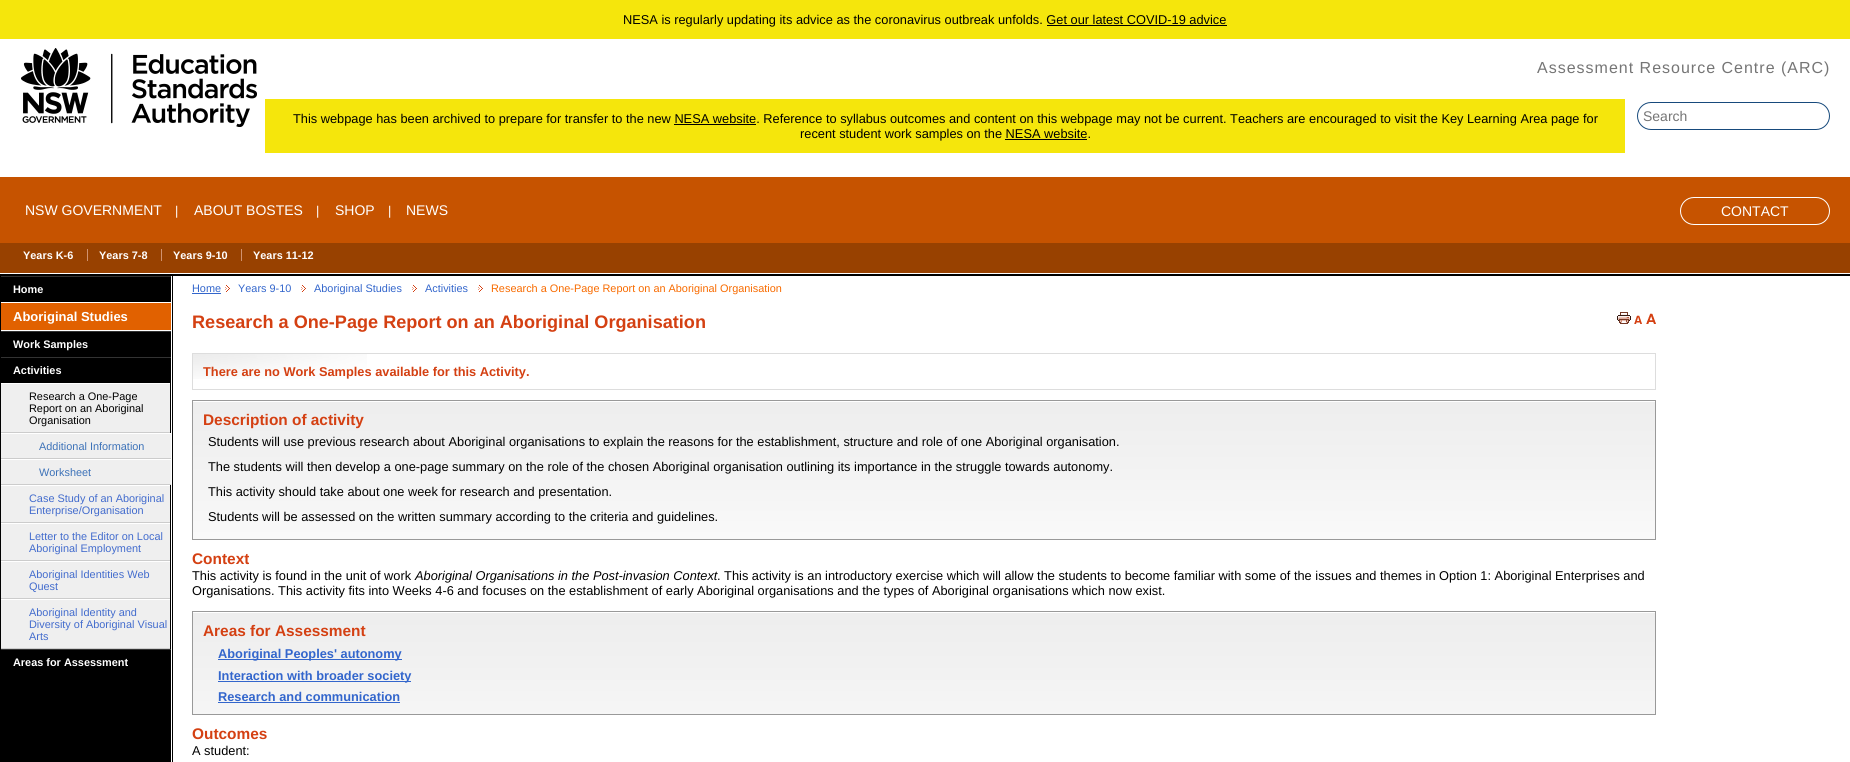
import math
import cairo


def use_color(cr, r, g, b):
  cr.set_source_rgb(r / 255, g / 255, b / 255)

def text(cr, x, y, s, family, size, color, bold=False, italic=False):
  cr.select_font_face(family, cairo.FONT_SLANT_ITALIC if italic else cairo.FONT_SLANT_NORMAL, cairo.FONT_WEIGHT_BOLD if bold else cairo.FONT_WEIGHT_NORMAL)
  cr.set_font_size(size)
  use_color(cr, *color)
  cr.move_to(x, y)
  cr.show_text(s)

def spaced_text(cr, x, y, s, letter, word):
  cr.move_to(x, y)
  for ch in s:
    cr.show_text(ch)
    cr.rel_move_to(letter + word * (ch == ' '), 0)

def box(cr, x, y, w, h, *color):
  use_color(cr, *color)
  cr.rectangle(x, y, w, h)
  cr.fill()

def round_rect(cr, x, y, w, h, r):
  cr.new_sub_path()
  for i, (u, v) in enumerate([(x + w - r, y + h - r), (x + r, y + h - r), (x + r, y + r), (x + w - r, y + r)]):
    cr.arc(u, v, r, i * math.pi / 2, (i + 1) * math.pi / 2)
  cr.close_path()

def picture(cr, path, x, y, w, h):
  cr.save()
  cr.set_source_surface(cairo.ImageSurface.create_from_png(path), x, y)
  cr.rectangle(x, y, w, h)
  cr.fill()
  cr.restore()

def draw(cr):
  use_color(cr, 255, 255, 255)
  cr.paint()
  box(cr, 0, 0, 1850, 39, 245, 230, 12)
  box(cr, 1047, 25, 180, 1, 0, 0, 0)
  picture(cr, "img_01.png", 21, 48, 236, 79)
  round_rect(cr, 1637.5, 102.5, 192, 27, 13.5)
  use_color(cr, 23, 74, 124)
  cr.set_line_width(1)
  cr.stroke()
  box(cr, 265, 99, 1360, 54, 245, 230, 12)
  box(cr, 674, 124, 82, 1, 0, 0, 0)
  box(cr, 1005, 139, 82, 1, 0, 0, 0)
  box(cr, 0, 177, 1850, 66, 198, 83, 0)
  round_rect(cr, 1680.5, 197.5, 149, 27, 13.5)
  use_color(cr, 255, 255, 255)
  cr.stroke()
  box(cr, 0, 243, 1850, 30, 152, 65, 0)
  box(cr, 87, 249, 1, 12, 209, 146, 111)
  box(cr, 161, 249, 1, 12, 209, 146, 111)
  box(cr, 241, 249, 1, 12, 209, 146, 111)
  picture(cr, "img_02.png", 0, 276, 173, 486)
  box(cr, 0, 274, 1850, 2, 0, 0, 0)
  box(cr, 1, 276, 170, 1, 51, 51, 51)
  box(cr, 1, 303, 170, 27, 225, 97, 0)
  box(cr, 1, 302, 170, 1, 255, 255, 255)
  box(cr, 1, 330, 170, 1, 255, 255, 255)
  box(cr, 1, 331, 170, 1, 51, 51, 51)
  box(cr, 1, 357, 170, 1, 51, 51, 51)
  box(cr, 1, 384, 169, 48, 239, 239, 239)
  box(cr, 1, 383, 169, 1, 255, 255, 255)
  box(cr, 1, 432, 169, 1, 204, 204, 204)
  box(cr, 1, 434, 170, 24, 239, 239, 239)
  box(cr, 1, 433, 170, 1, 255, 255, 255)
  box(cr, 1, 458, 170, 1, 204, 204, 204)
  box(cr, 1, 460, 170, 24, 239, 239, 239)
  box(cr, 1, 459, 170, 1, 255, 255, 255)
  box(cr, 1, 484, 170, 1, 204, 204, 204)
  box(cr, 1, 486, 169, 36, 239, 239, 239)
  box(cr, 1, 485, 169, 1, 255, 255, 255)
  box(cr, 1, 522, 169, 1, 204, 204, 204)
  box(cr, 1, 524, 169, 36, 239, 239, 239)
  box(cr, 1, 523, 169, 1, 255, 255, 255)
  box(cr, 1, 560, 169, 1, 204, 204, 204)
  box(cr, 1, 562, 169, 36, 239, 239, 239)
  box(cr, 1, 561, 169, 1, 255, 255, 255)
  box(cr, 1, 598, 169, 1, 204, 204, 204)
  box(cr, 1, 600, 169, 48, 239, 239, 239)
  box(cr, 1, 599, 169, 1, 255, 255, 255)
  box(cr, 1, 648, 169, 1, 204, 204, 204)
  box(cr, 1, 649, 170, 1, 51, 51, 51)
  box(cr, 192, 293, 29, 1, 51, 102, 204)
  picture(cr, "img_03.png", 225, 285, 5, 7)
  picture(cr, "img_03.png", 301, 285, 5, 7)
  picture(cr, "img_03.png", 412, 285, 5, 7)
  picture(cr, "img_03.png", 478, 285, 5, 7)
  picture(cr, "img_04.png", 1617, 312, 14, 12)
  picture(cr, "img_05.png", 1634, 315, 8, 9)
  picture(cr, "img_06.png", 1646, 313, 10, 11)
  picture(cr, "img_07.png", 193, 354, 174, 25)
  cr.rectangle(192.5, 353.5, 1463, 36)
  use_color(cr, 221, 221, 221)
  cr.stroke()
  picture(cr, "img_08.png", 193, 402, 1462, 137)
  cr.rectangle(192.5, 400.5, 1463, 139)
  use_color(cr, 153, 153, 153)
  cr.stroke()
  picture(cr, "img_09.png", 193, 613, 1462, 101)
  cr.rectangle(192.5, 611.5, 1463, 103)
  cr.stroke()
  box(cr, 218, 659, 184, 1, 51, 102, 204)
  box(cr, 218, 681, 193, 1, 51, 102, 204)
  box(cr, 218, 702, 182, 1, 51, 102, 204)
  text(cr, 623, 24, "NESA is regularly updating its advice as the coronavirus outbreak unfolds. Get our latest COVID-19 advice", "Liberation Sans", 12.8, (0, 0, 0))
  cr.set_font_size(16)
  use_color(cr, 117, 117, 117)
  spaced_text(cr, 1537, 73, "Assessment Resource Centre (ARC)", 1, 0)
  text(cr, 1643, 121, "Search", "Liberation Sans", 14, (117, 117, 117))
  text(cr, 293, 123, "This webpage has been archived to prepare for transfer to the new NESA website. Reference to syllabus outcomes and content on this webpage may not be current. Teachers are encouraged to visit the Key Learning Area page for", "Liberation Sans", 12.8, (0, 0, 0))
  text(cr, 800, 138, "recent student work samples on the NESA website.", "Liberation Sans", 12.8, (0, 0, 0))
  text(cr, 25, 215, "NSW GOVERNMENT", "Liberation Sans", 14, (255, 255, 255))
  text(cr, 175, 215, "|", "Liberation Sans", 12.8, (255, 255, 255))
  text(cr, 194, 215, "ABOUT BOSTES", "Liberation Sans", 14, (255, 255, 255))
  text(cr, 316, 215, "|", "Liberation Sans", 12.8, (255, 255, 255))
  text(cr, 335, 215, "SHOP", "Liberation Sans", 14, (255, 255, 255))
  text(cr, 388, 215, "|", "Liberation Sans", 12.8, (255, 255, 255))
  text(cr, 406, 215, "NEWS", "Liberation Sans", 14, (255, 255, 255))
  text(cr, 1721, 216, "CONTACT", "Liberation Sans", 14, (255, 255, 255))
  text(cr, 23, 259, "Years K-6", "Liberation Sans", 10.9, (255, 255, 255), bold=True)
  text(cr, 99, 259, "Years 7-8", "Liberation Sans", 10.9, (255, 255, 255), bold=True)
  text(cr, 173, 259, "Years 9-10", "Liberation Sans", 10.9, (255, 255, 255), bold=True)
  text(cr, 253, 259, "Years 11-12", "Liberation Sans", 10.9, (255, 255, 255), bold=True)
  text(cr, 13, 293, "Home", "Liberation Sans", 10.9, (255, 255, 255), bold=True)
  text(cr, 13, 321, "Aboriginal Studies", "Liberation Sans", 13, (255, 255, 255), bold=True)
  text(cr, 13, 348, "Work Samples", "Liberation Sans", 10.9, (255, 255, 255), bold=True)
  text(cr, 13, 374, "Activities", "Liberation Sans", 10.9, (255, 255, 255), bold=True)
  text(cr, 29, 400, "Research a One-Page", "Liberation Sans", 10.9, (0, 0, 0))
  text(cr, 29, 412, "Report on an Aboriginal", "Liberation Sans", 10.9, (0, 0, 0))
  text(cr, 29, 424, "Organisation", "Liberation Sans", 10.9, (0, 0, 0))
  text(cr, 39, 450, "Additional Information", "Liberation Sans", 10.9, (61, 114, 184))
  text(cr, 39, 476, "Worksheet", "Liberation Sans", 10.9, (61, 114, 184))
  text(cr, 29, 502, "Case Study of an Aboriginal", "Liberation Sans", 10.9, (67, 108, 205))
  text(cr, 29, 514, "Enterprise/Organisation", "Liberation Sans", 10.9, (67, 108, 205))
  text(cr, 29, 540, "Letter to the Editor on Local", "Liberation Sans", 10.9, (67, 108, 205))
  text(cr, 29, 552, "Aboriginal Employment", "Liberation Sans", 10.9, (67, 108, 205))
  text(cr, 29, 578, "Aboriginal Identities Web", "Liberation Sans", 10.9, (67, 108, 205))
  text(cr, 29, 590, "Quest", "Liberation Sans", 10.9, (67, 108, 205))
  text(cr, 29, 616, "Aboriginal Identity and", "Liberation Sans", 10.9, (67, 108, 205))
  text(cr, 29, 628, "Diversity of Aboriginal Visual", "Liberation Sans", 10.9, (67, 108, 205))
  text(cr, 29, 640, "Arts", "Liberation Sans", 10.9, (67, 108, 205))
  text(cr, 13, 666, "Areas for Assessment", "Liberation Sans", 10.9, (255, 255, 255), bold=True)
  text(cr, 192, 292, "Home", "Liberation Sans", 10.9, (51, 102, 204))
  text(cr, 238, 292, "Years 9-10", "Liberation Sans", 10.9, (51, 102, 204))
  text(cr, 314, 292, "Aboriginal Studies", "Liberation Sans", 10.9, (51, 102, 204))
  text(cr, 425, 292, "Activities", "Liberation Sans", 10.9, (51, 102, 204))
  text(cr, 491, 292, "Research a One-Page Report on an Aboriginal Organisation", "Liberation Sans", 10.9, (248, 107, 0))
  text(cr, 192, 328, "Research a One-Page Report on an Aboriginal Organisation", "Liberation Sans", 18.1, (212, 64, 18), bold=True)
  text(cr, 203, 376, "There are no Work Samples available for this Activity.", "Liberation Sans", 12.8, (212, 64, 18), bold=True)
  text(cr, 203, 425, "Description of activity", "Liberation Sans", 15.4, (212, 64, 18), bold=True)
  text(cr, 208, 446, "Students will use previous research about Aboriginal organisations to explain the reasons for the establishment, structure and role of one Aboriginal organisation.", "Liberation Sans", 12.8, (0, 0, 0))
  text(cr, 208, 471, "The students will then develop a one-page summary on the role of the chosen Aboriginal organisation outlining its importance in the struggle towards autonomy.", "Liberation Sans", 12.8, (0, 0, 0))
  text(cr, 208, 496, "This activity should take about one week for research and presentation.", "Liberation Sans", 12.8, (0, 0, 0))
  text(cr, 208, 521, "Students will be assessed on the written summary according to the criteria and guidelines.", "Liberation Sans", 12.8, (0, 0, 0))
  text(cr, 192, 564, "Context", "Liberation Sans", 15.4, (212, 64, 18), bold=True)
  text(cr, 192, 580, "This activity is found in the unit of work", "Liberation Sans", 12.8, (0, 0, 0))
  text(cr, 415, 580, "Aboriginal Organisations in the Post-invasion Context", "Liberation Sans", 12.8, (0, 0, 0), italic=True)
  text(cr, 717, 580, ". This activity is an introductory exercise which will allow the students to become familiar with some of the issues and themes in Option 1: Aboriginal Enterprises and", "Liberation Sans", 12.8, (0, 0, 0))
  text(cr, 192, 595, "Organisations. This activity fits into Weeks 4-6 and focuses on the establishment of early Aboriginal organisations and the types of Aboriginal organisations which now exist.", "Liberation Sans", 12.8, (0, 0, 0))
  text(cr, 203, 636, "Areas for Assessment", "Liberation Sans", 15.4, (212, 64, 18), bold=True)
  text(cr, 218, 658, "Aboriginal Peoples' autonomy", "Liberation Sans", 12.8, (51, 102, 204), bold=True)
  text(cr, 218, 680, "Interaction with broader society", "Liberation Sans", 12.8, (51, 102, 204), bold=True)
  text(cr, 218, 701, "Research and communication", "Liberation Sans", 12.8, (51, 102, 204), bold=True)
  text(cr, 192, 739, "Outcomes", "Liberation Sans", 15.4, (212, 64, 18), bold=True)
  text(cr, 192, 755, "A student:", "Liberation Sans", 12.8, (0, 0, 0))


surface = cairo.ImageSurface(cairo.FORMAT_RGB24, 1850, 762)
cr = cairo.Context(surface)
options = cairo.FontOptions()
options.set_hint_metrics(cairo.HINT_METRICS_OFF)
options.set_hint_style(cairo.HINT_STYLE_NONE)
cr.set_font_options(options)
cr.set_miter_limit(4)
draw(cr)
surface.write_to_png("out.png")
